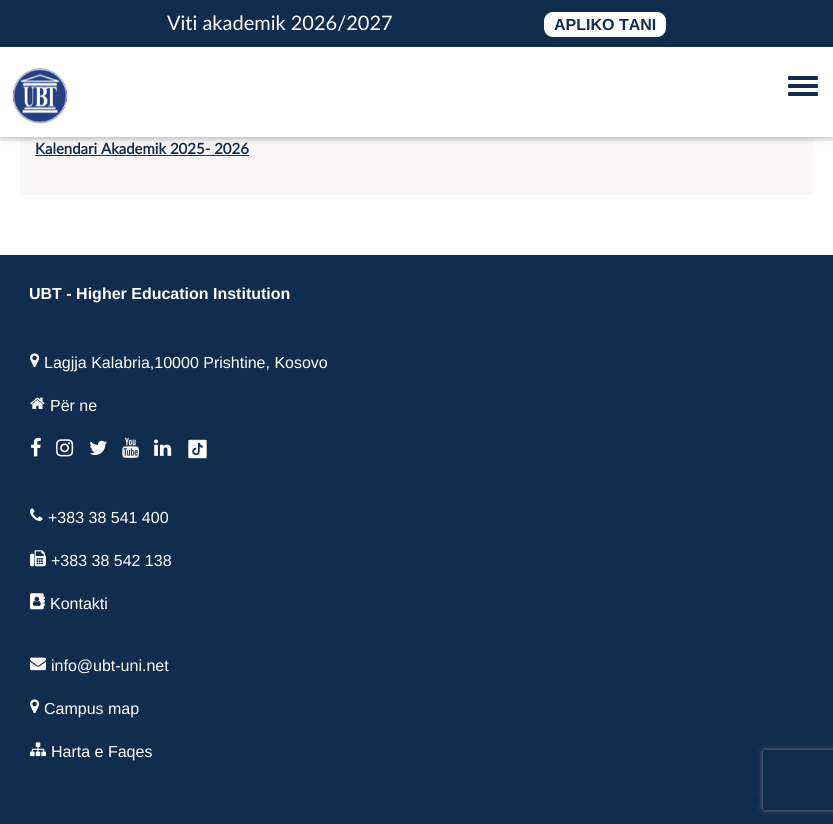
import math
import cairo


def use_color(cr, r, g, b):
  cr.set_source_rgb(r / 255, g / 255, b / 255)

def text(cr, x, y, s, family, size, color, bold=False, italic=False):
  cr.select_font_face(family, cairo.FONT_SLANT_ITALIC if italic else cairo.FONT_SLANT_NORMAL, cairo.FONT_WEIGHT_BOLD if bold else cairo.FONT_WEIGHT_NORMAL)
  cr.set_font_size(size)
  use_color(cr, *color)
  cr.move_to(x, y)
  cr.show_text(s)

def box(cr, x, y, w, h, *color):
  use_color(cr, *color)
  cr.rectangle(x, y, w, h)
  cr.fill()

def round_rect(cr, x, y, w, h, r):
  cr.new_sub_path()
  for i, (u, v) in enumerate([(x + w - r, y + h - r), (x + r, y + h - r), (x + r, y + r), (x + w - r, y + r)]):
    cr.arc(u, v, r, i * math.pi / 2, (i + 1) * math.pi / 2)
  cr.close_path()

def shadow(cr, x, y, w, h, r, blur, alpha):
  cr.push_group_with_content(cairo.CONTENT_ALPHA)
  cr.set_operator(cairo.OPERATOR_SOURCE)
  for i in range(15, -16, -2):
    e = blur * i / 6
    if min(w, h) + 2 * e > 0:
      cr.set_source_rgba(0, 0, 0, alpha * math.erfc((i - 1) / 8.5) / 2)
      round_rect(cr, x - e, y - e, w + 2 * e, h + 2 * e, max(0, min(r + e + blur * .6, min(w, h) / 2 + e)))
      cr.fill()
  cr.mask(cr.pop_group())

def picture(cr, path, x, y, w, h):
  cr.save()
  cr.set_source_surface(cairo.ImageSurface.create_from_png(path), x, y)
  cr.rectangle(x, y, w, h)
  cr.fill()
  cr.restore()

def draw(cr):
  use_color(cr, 255, 255, 255)
  cr.paint()
  box(cr, 20, 137, 793, 58, 249, 247, 247)
  use_color(cr, 18, 46, 79)
  shadow(cr, 0, 3, 833, 137, 0, 1.5, 0.15)
  shadow(cr, 0, 0, 833, 137, 0, 5, 0.15)
  box(cr, 0, 47, 833, 90, 255, 255, 255)
  box(cr, 0, 0, 833, 47, 17, 45, 78)
  use_color(cr, 255, 255, 255)
  round_rect(cr, 544, 12, 122, 25, 9)
  cr.fill()
  picture(cr, "img_01.png", 12, 68, 56, 56)
  use_color(cr, 17, 45, 78)
  round_rect(cr, 788, 76, 30, 4, 1)
  cr.fill()
  round_rect(cr, 788, 84, 30, 4, 1)
  cr.fill()
  round_rect(cr, 788, 92, 30, 4, 1)
  cr.fill()
  box(cr, 35, 155, 214, 1, 51, 51, 51)
  box(cr, 0, 255, 833, 569, 17, 45, 78)
  picture(cr, "img_02.png", 30, 353, 10, 15)
  picture(cr, "img_03.png", 30, 397, 15, 12)
  picture(cr, "img_04.png", 31, 437, 10, 20)
  picture(cr, "img_05.png", 56, 439, 18, 18)
  picture(cr, "img_06.png", 89, 440, 18, 15)
  picture(cr, "img_07.png", 122, 437, 17, 21)
  picture(cr, "img_08.png", 154, 439, 18, 17)
  picture(cr, "img_09.png", 188, 439, 19, 20)
  picture(cr, "img_10.png", 30, 508, 13, 13)
  picture(cr, "img_11.png", 30, 550, 16, 17)
  picture(cr, "img_12.png", 30, 593, 15, 17)
  picture(cr, "img_13.png", 30, 657, 16, 14)
  picture(cr, "img_02.png", 30, 699, 10, 15)
  picture(cr, "img_14.png", 30, 742, 16, 15)
  box(cr, 0, 799, 833, 2, 15, 41, 70)
  cr.save()
  cr.set_fill_rule(cairo.FILL_RULE_EVEN_ODD)
  cr.new_path()
  cr.move_to(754, 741)
  cr.line_to(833, 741)
  cr.line_to(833, 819)
  cr.line_to(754, 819)
  cr.close_path()
  cr.move_to(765, 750)
  cr.line_to(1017, 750)
  cr.curve_to(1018, 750, 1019, 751, 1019, 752)
  cr.line_to(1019, 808)
  cr.curve_to(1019, 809, 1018, 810, 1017, 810)
  cr.line_to(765, 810)
  cr.curve_to(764, 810, 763, 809, 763, 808)
  cr.line_to(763, 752)
  cr.curve_to(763, 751, 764, 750, 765, 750)
  cr.close_path()
  cr.clip()
  use_color(cr, 128, 128, 128)
  shadow(cr, 763, 750, 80, 60, 2, 2.5, 1)
  cr.restore()
  text(cr, 167, 30, "Viti akademik 2026/2027", "Lato", 20, (255, 255, 255))
  text(cr, 554, 30, "APLIKO TANI", "Liberation Sans", 16, (17, 45, 78), bold=True)
  text(cr, 35, 154, "Kalendari Akademik 2025- 2026", "Lato", 15, (17, 45, 78), bold=True)
  text(cr, 29, 299, "UBT - Higher Education Institution", "Liberation Sans", 16, (255, 255, 255), bold=True)
  text(cr, 44, 368, "Lagjja Kalabria,10000 Prishtine, Kosovo", "Liberation Sans", 16, (255, 255, 255))
  text(cr, 50, 411, "Për ne", "Liberation Sans", 16, (255, 255, 255))
  text(cr, 48, 523, "+383 38 541 400", "Liberation Sans", 16, (255, 255, 255))
  text(cr, 51, 566, "+383 38 542 138", "Liberation Sans", 16, (255, 255, 255))
  text(cr, 50, 609, "Kontakti", "Liberation Sans", 16, (255, 255, 255))
  text(cr, 51, 671, "info@ubt-uni.net", "Liberation Sans", 16, (255, 255, 255))
  text(cr, 44, 714, "Campus map", "Liberation Sans", 16, (255, 255, 255))
  text(cr, 51, 757, "Harta e Faqes", "Liberation Sans", 16, (255, 255, 255))


surface = cairo.ImageSurface(cairo.FORMAT_RGB24, 833, 824)
cr = cairo.Context(surface)
options = cairo.FontOptions()
options.set_hint_metrics(cairo.HINT_METRICS_OFF)
options.set_hint_style(cairo.HINT_STYLE_NONE)
cr.set_font_options(options)
cr.set_miter_limit(4)
draw(cr)
surface.write_to_png("out.png")
